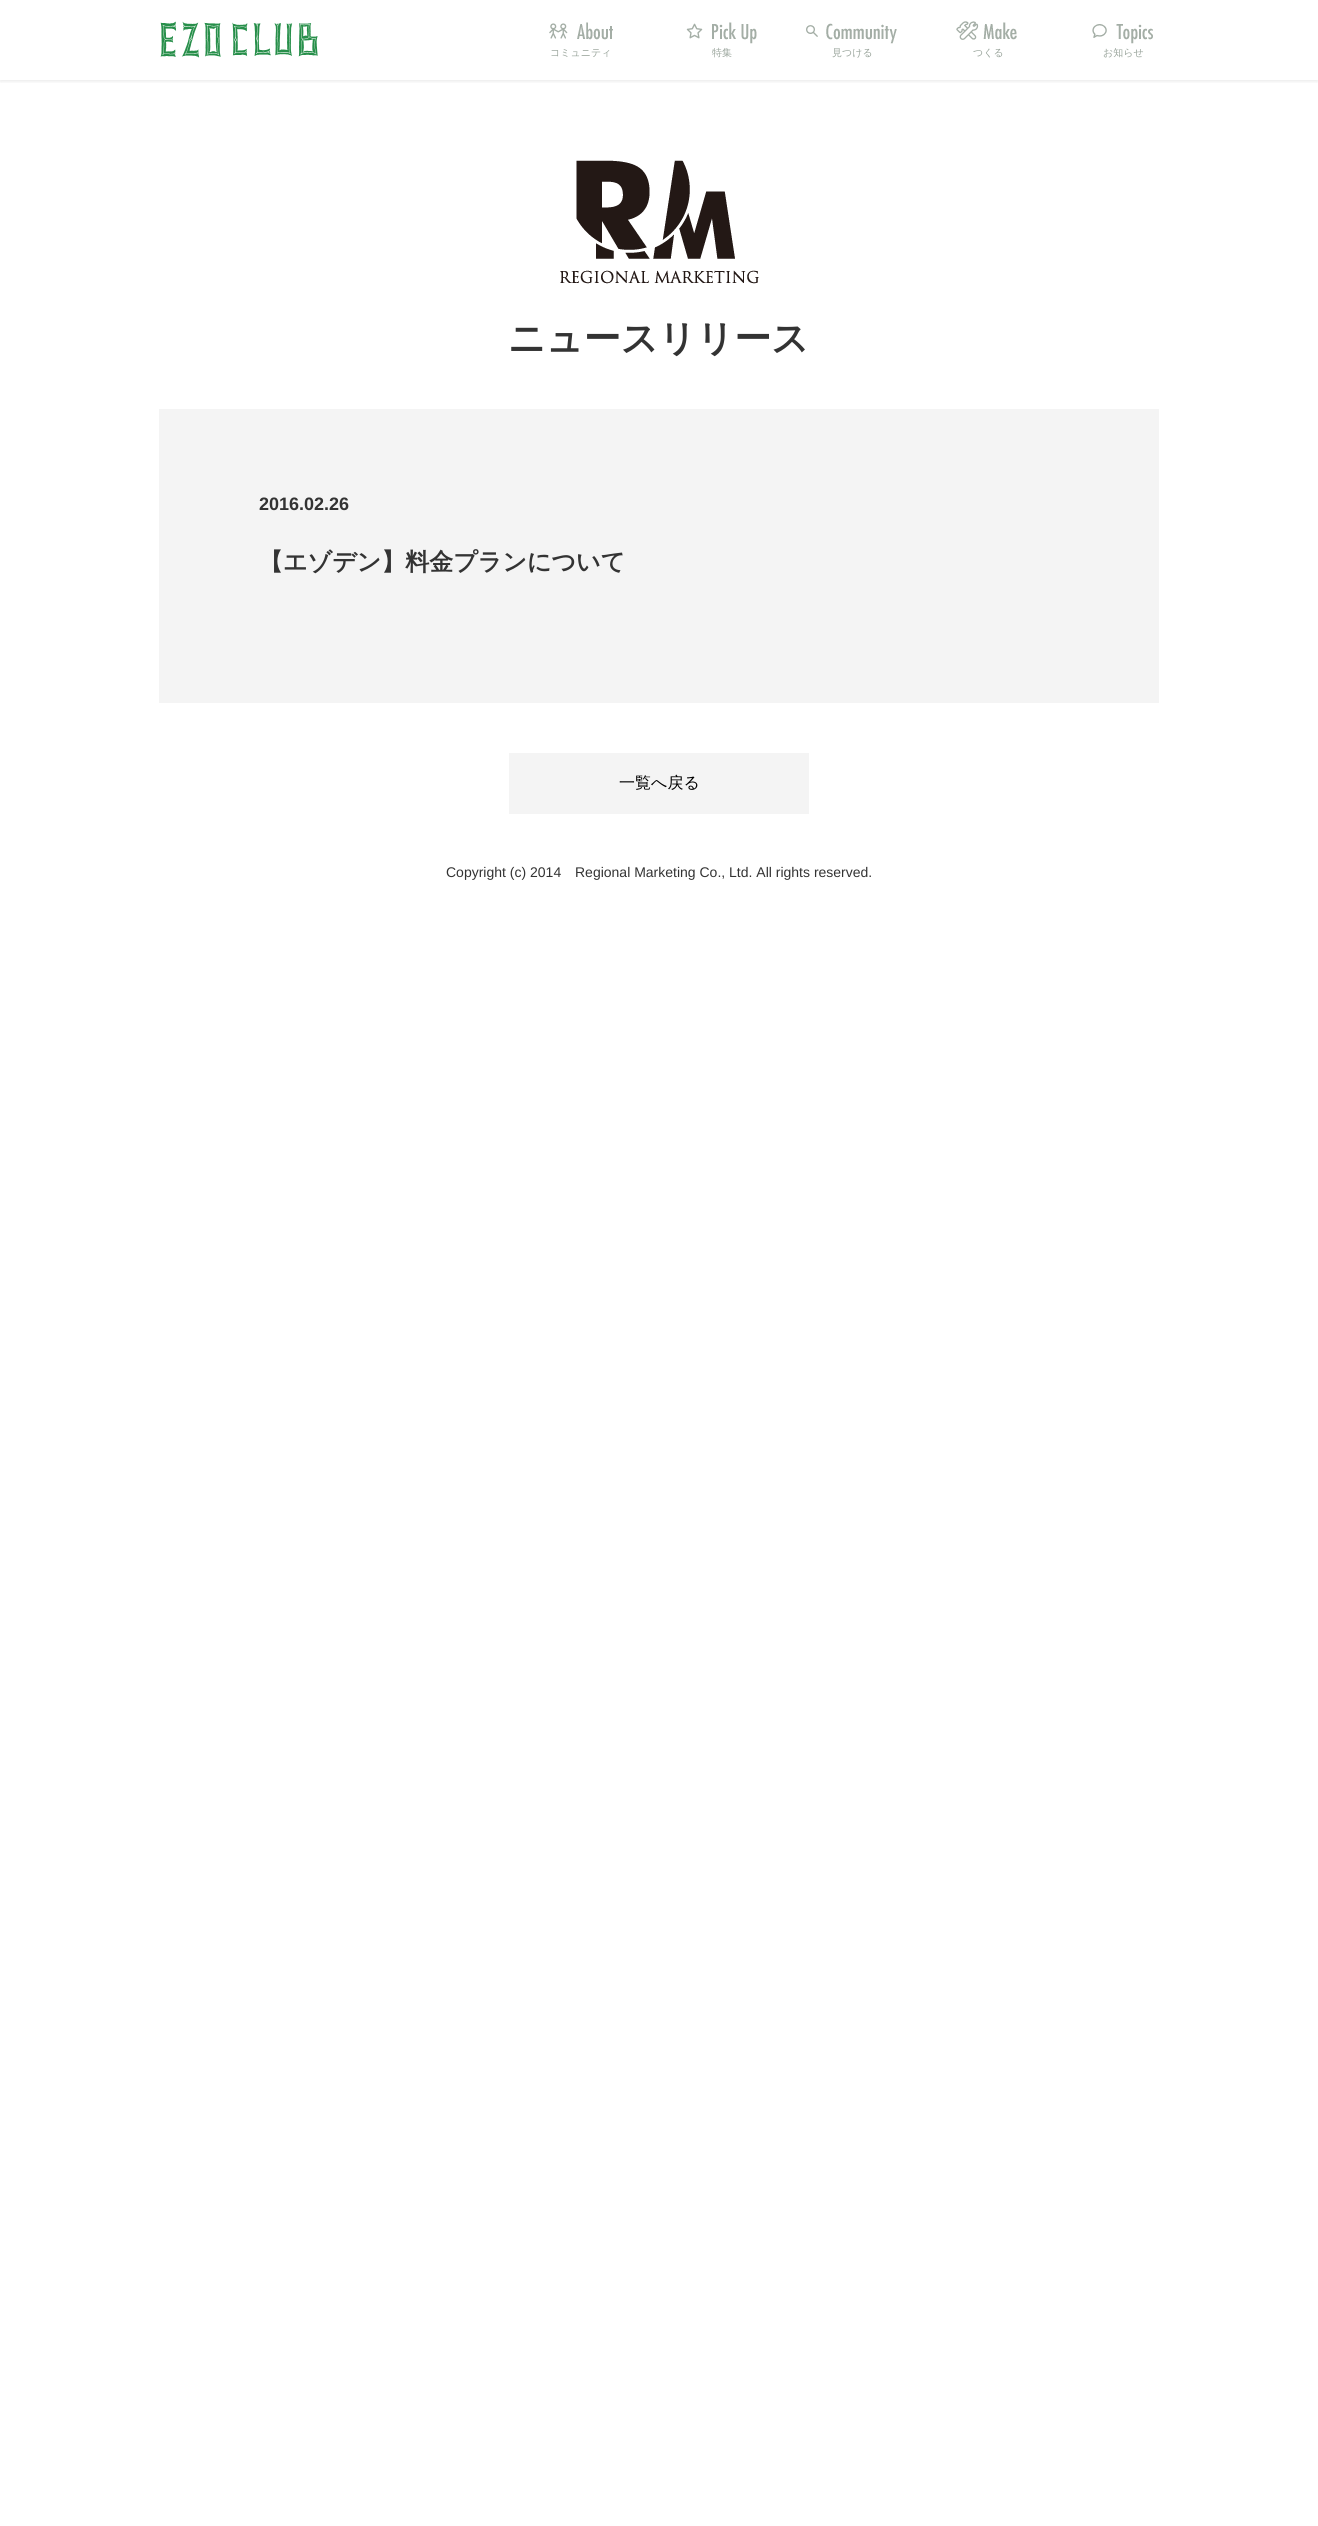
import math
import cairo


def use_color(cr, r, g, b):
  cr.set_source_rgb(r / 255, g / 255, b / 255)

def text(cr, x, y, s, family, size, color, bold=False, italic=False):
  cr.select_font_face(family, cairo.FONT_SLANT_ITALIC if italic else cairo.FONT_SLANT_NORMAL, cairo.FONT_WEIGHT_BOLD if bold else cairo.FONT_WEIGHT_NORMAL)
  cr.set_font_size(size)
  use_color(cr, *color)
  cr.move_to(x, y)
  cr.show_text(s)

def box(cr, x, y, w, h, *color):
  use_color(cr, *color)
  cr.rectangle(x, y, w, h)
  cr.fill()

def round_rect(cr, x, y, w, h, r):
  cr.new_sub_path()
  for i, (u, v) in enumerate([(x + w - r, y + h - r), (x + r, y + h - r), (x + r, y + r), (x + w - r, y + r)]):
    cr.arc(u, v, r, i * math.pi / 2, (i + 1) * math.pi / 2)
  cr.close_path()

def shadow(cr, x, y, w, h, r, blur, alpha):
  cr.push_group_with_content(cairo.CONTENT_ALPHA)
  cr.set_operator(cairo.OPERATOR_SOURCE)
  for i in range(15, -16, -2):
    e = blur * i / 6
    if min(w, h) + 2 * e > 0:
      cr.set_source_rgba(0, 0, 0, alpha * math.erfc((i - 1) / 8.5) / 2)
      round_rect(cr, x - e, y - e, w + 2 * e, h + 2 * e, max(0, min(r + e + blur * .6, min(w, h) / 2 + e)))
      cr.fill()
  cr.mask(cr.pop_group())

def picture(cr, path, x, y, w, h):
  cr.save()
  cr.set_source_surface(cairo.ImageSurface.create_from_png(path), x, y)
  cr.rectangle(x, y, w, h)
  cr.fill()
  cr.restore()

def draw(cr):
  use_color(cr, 255, 255, 255)
  cr.paint()
  cr.save()
  cr.rectangle(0, 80, 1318, 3)
  cr.clip()
  use_color(cr, 0, 0, 0)
  shadow(cr, 0, 1, 1318, 80, 0, 2.5, 0.1)
  cr.restore()
  picture(cr, "img_01.png", 160, 21, 158, 37)
  picture(cr, "img_02.png", 549, 22, 64, 18)
  picture(cr, "img_03.png", 686, 22, 71, 22)
  picture(cr, "img_04.png", 806, 23, 91, 21)
  picture(cr, "img_05.png", 956, 21, 61, 19)
  picture(cr, "img_06.png", 1092, 24, 61, 20)
  picture(cr, "img_07.png", 560, 160, 199, 124)
  box(cr, 159, 409, 1000, 294, 244, 244, 244)
  box(cr, 509, 753, 300, 61, 244, 244, 244)
  text(cr, 550, 56, "コミュニティ", "WenQuanYi Zen Hei Medium", 10, (154, 165, 156))
  text(cr, 712, 56, "特集", "WenQuanYi Zen Hei Medium", 10, (154, 165, 156))
  text(cr, 832, 56, "見つける", "WenQuanYi Zen Hei Medium", 10, (154, 165, 156))
  text(cr, 973, 56, "つくる", "WenQuanYi Zen Hei Medium", 10, (154, 165, 156))
  text(cr, 1103, 56, "お知らせ", "WenQuanYi Zen Hei Medium", 10, (154, 165, 156))
  text(cr, 508, 351, "ニュースリリース", "WenQuanYi Zen Hei", 37, (51, 51, 51), bold=True)
  text(cr, 259, 510, "2016.02.26", "Liberation Sans", 18, (51, 51, 51), bold=True)
  text(cr, 259, 570, "【エゾデン】料金プランについて", "WenQuanYi Zen Hei", 24, (51, 51, 51), bold=True)
  text(cr, 619, 788, "一覧へ戻る", "WenQuanYi Zen Hei Medium", 16, (0, 0, 0))
  text(cr, 446, 877, "Copyright (c) 2014", "Liberation Sans", 14, (51, 51, 51))
  text(cr, 575, 877, "Regional Marketing Co., Ltd. All rights reserved.", "Liberation Sans", 14, (51, 51, 51))


surface = cairo.ImageSurface(cairo.FORMAT_RGB24, 1318, 2526)
cr = cairo.Context(surface)
options = cairo.FontOptions()
options.set_hint_metrics(cairo.HINT_METRICS_OFF)
options.set_hint_style(cairo.HINT_STYLE_NONE)
cr.set_font_options(options)
cr.set_miter_limit(4)
draw(cr)
surface.write_to_png("out.png")
